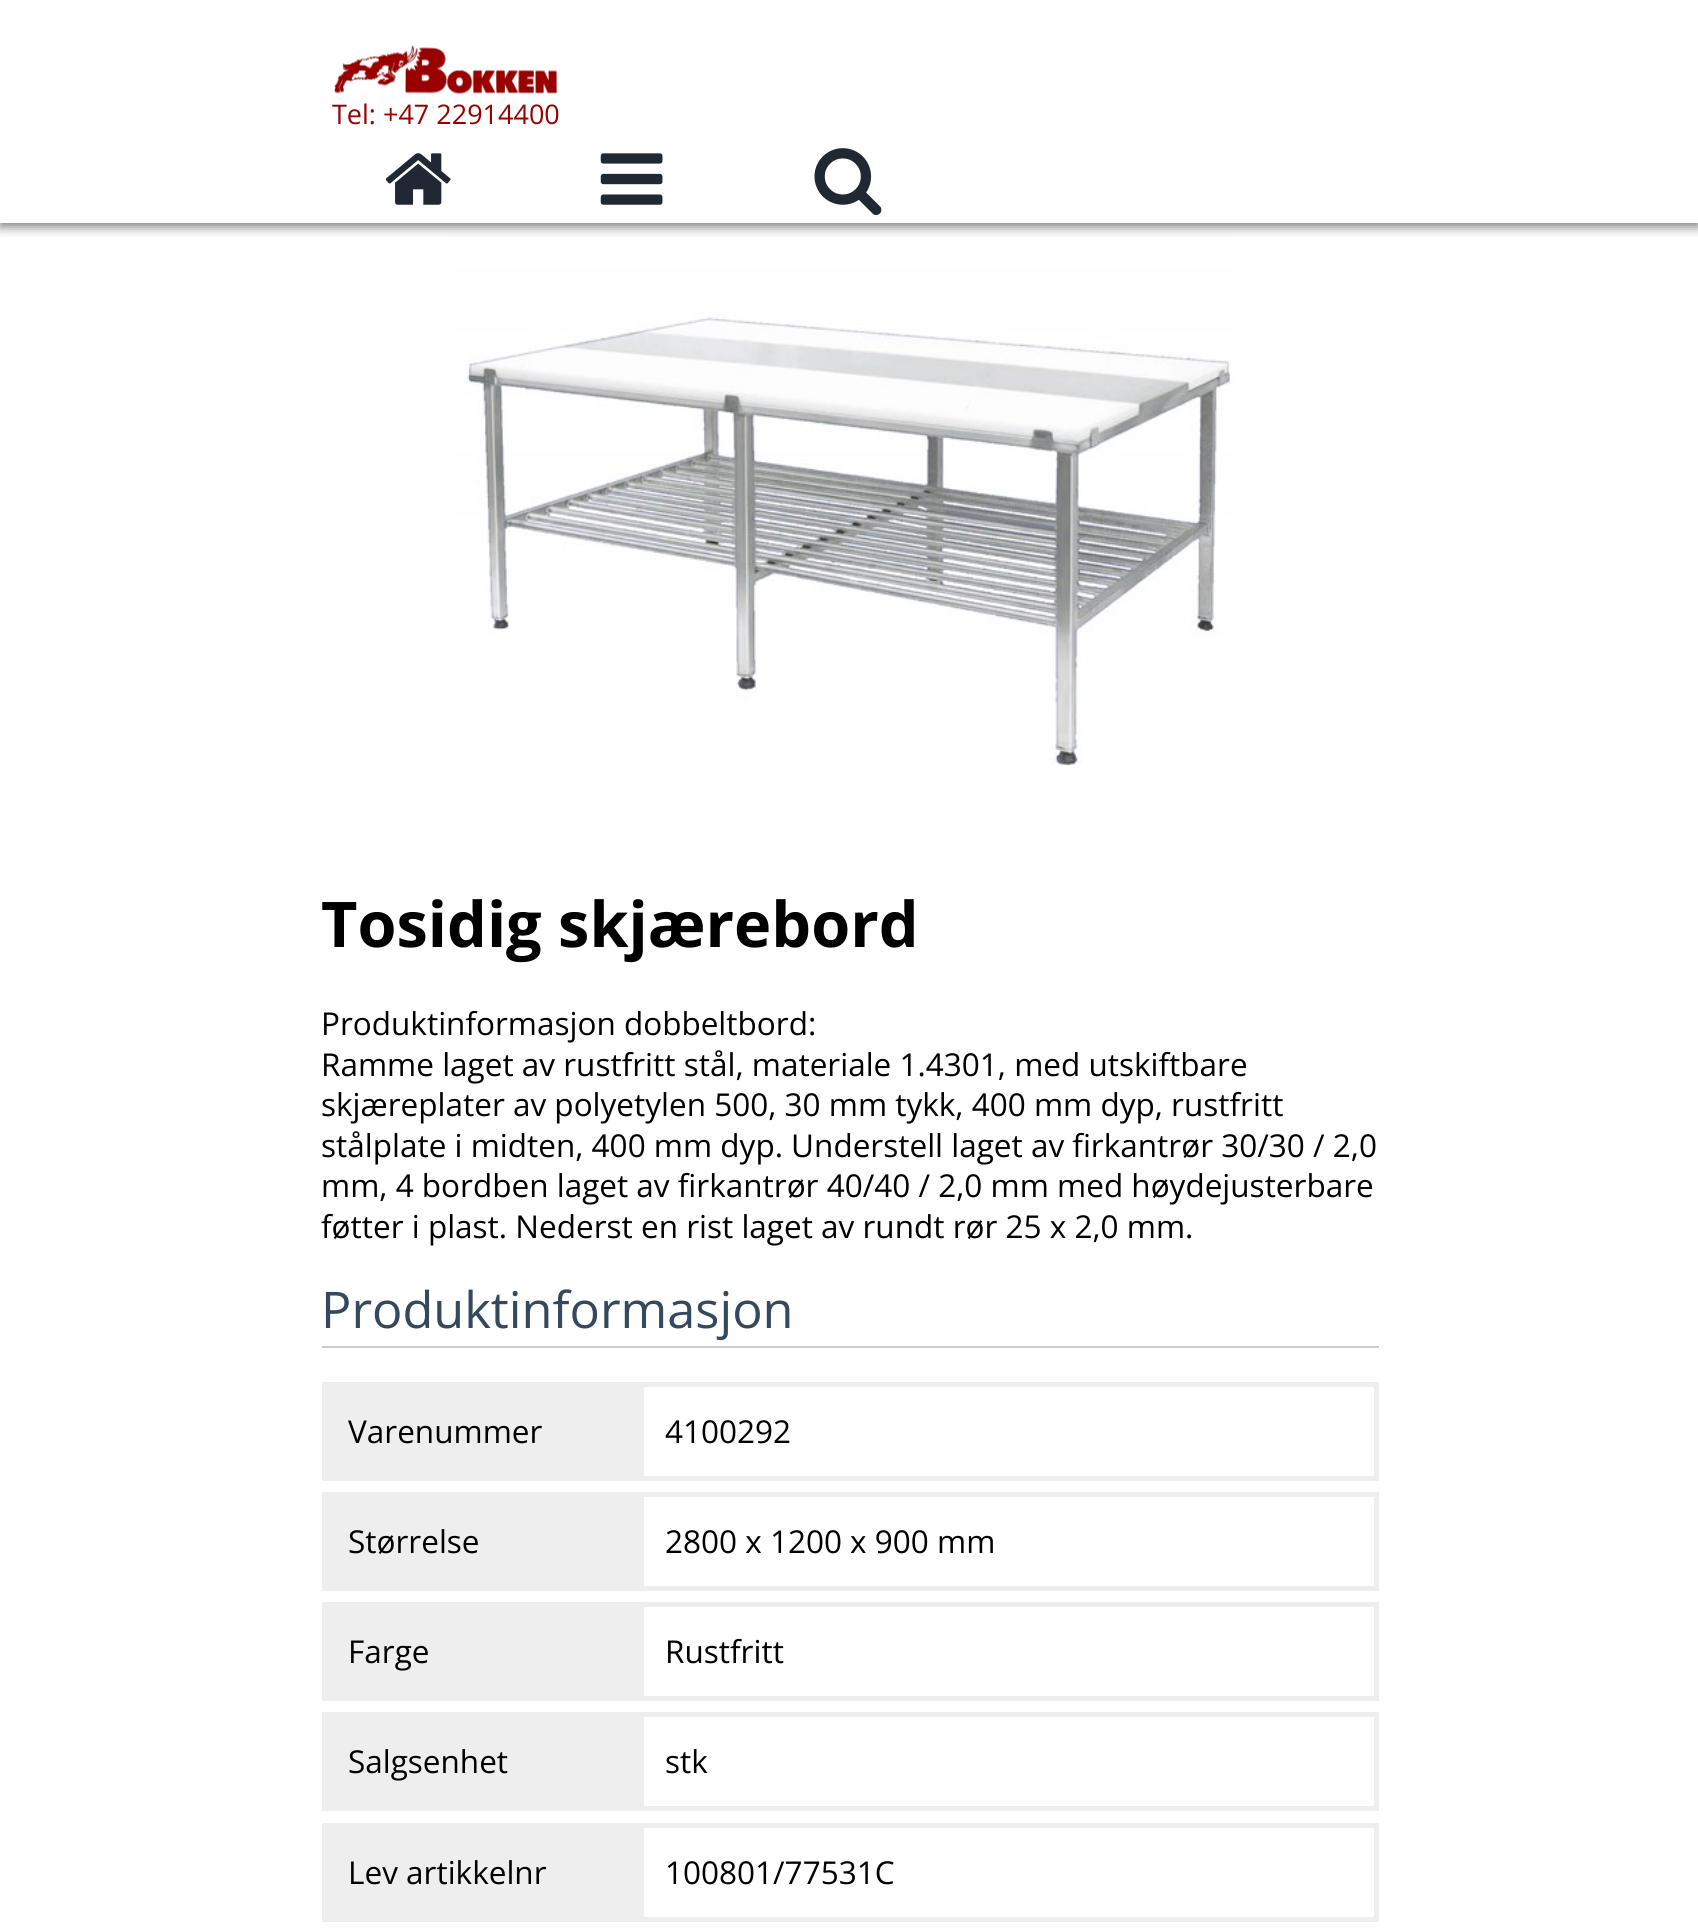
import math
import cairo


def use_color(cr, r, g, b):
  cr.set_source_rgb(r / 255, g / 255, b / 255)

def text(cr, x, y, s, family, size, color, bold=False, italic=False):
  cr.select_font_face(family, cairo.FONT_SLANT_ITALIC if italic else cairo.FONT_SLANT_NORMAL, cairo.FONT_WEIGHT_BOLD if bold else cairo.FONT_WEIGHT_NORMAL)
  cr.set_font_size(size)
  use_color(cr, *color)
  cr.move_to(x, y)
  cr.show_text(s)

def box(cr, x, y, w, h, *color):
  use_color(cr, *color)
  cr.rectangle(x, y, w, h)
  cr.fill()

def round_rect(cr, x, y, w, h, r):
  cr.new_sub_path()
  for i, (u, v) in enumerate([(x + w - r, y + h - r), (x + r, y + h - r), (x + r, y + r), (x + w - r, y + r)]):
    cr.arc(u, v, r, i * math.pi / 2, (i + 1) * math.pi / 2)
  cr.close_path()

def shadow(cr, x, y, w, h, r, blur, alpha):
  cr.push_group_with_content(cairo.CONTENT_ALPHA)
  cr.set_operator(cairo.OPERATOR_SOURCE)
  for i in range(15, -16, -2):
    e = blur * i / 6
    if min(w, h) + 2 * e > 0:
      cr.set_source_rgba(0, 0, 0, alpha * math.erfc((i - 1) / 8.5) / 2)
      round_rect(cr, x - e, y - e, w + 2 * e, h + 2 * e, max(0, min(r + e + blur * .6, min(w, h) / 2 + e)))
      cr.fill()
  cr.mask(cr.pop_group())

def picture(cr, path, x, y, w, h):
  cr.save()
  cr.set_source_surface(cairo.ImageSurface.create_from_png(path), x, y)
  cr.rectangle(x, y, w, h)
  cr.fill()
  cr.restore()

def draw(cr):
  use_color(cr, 255, 255, 255)
  cr.paint()
  picture(cr, "img_05.png", 452, 223, 781, 543)
  cr.save()
  cr.rectangle(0, 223, 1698, 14)
  cr.clip()
  use_color(cr, 0, 0, 0)
  shadow(cr, 0, 5, 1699, 222, 0, 5.5, 0.5)
  cr.restore()
  picture(cr, "img_01.png", 334, 45, 224, 50)
  box(cr, 0, 222, 1698, 1, 255, 255, 255)
  picture(cr, "img_02.png", 385, 153, 66, 52)
  picture(cr, "img_03.png", 600, 153, 63, 52)
  picture(cr, "img_04.png", 814, 148, 68, 67)
  box(cr, 322, 1346, 1057, 2, 204, 204, 204)
  box(cr, 322, 1382, 317, 99, 238, 238, 238)
  cr.rectangle(641.5, 1384.5, 735, 94)
  cr.set_line_width(5)
  cr.stroke()
  box(cr, 322, 1492, 317, 99, 238, 238, 238)
  cr.rectangle(641.5, 1494.5, 735, 94)
  cr.stroke()
  box(cr, 322, 1602, 317, 99, 238, 238, 238)
  cr.rectangle(641.5, 1604.5, 735, 94)
  cr.stroke()
  box(cr, 322, 1712, 317, 99, 238, 238, 238)
  cr.rectangle(641.5, 1714.5, 735, 94)
  cr.stroke()
  box(cr, 322, 1823, 317, 99, 238, 238, 238)
  cr.rectangle(641.5, 1825.5, 735, 94)
  cr.stroke()
  text(cr, 332, 124, "Tel: +47 22914400", "Open Sans", 27, (153, 0, 0))
  text(cr, 321, 947, "Tosidig skjærebord", "Open Sans", 63, (0, 0, 0), bold=True)
  text(cr, 321, 1035, "Produktinformasjon dobbeltbord:", "Open Sans", 31.5, (0, 0, 0))
  text(cr, 321, 1076, "Ramme laget av rustfritt stål, materiale 1.4301, med utskiftbare", "Open Sans", 31.5, (0, 0, 0))
  text(cr, 321, 1116, "skjæreplater av polyetylen 500, 30 mm tykk, 400 mm dyp, rustfritt", "Open Sans", 31.5, (0, 0, 0))
  text(cr, 321, 1157, "stålplate i midten, 400 mm dyp. Understell laget av firkantrør 30/30 / 2,0", "Open Sans", 31.5, (0, 0, 0))
  text(cr, 321, 1197, "mm, 4 bordben laget av firkantrør 40/40 / 2,0 mm med høydejusterbare", "Open Sans", 31.5, (0, 0, 0))
  text(cr, 321, 1238, "føtter i plast. Nederst en rist laget av rundt rør 25 x 2,0 mm.", "Open Sans", 31.5, (0, 0, 0))
  text(cr, 321, 1328, "Produktinformasjon", "Open Sans", 50.5, (52, 73, 94))
  text(cr, 348, 1443, "Varenummer", "Open Sans", 31.5, (0, 0, 0))
  text(cr, 665, 1443, "4100292", "Open Sans", 31.5, (0, 0, 0))
  text(cr, 348, 1553, "Størrelse", "Open Sans", 31.5, (0, 0, 0))
  text(cr, 665, 1553, "2800 x 1200 x 900 mm", "Open Sans", 31.5, (0, 0, 0))
  text(cr, 348, 1663, "Farge", "Open Sans", 31.5, (0, 0, 0))
  text(cr, 665, 1663, "Rustfritt", "Open Sans", 31.5, (0, 0, 0))
  text(cr, 348, 1773, "Salgsenhet", "Open Sans", 31.5, (0, 0, 0))
  text(cr, 665, 1773, "stk", "Open Sans", 31.5, (0, 0, 0))
  text(cr, 348, 1884, "Lev artikkelnr", "Open Sans", 31.5, (0, 0, 0))
  text(cr, 665, 1884, "100801/77531C", "Open Sans", 31.5, (0, 0, 0))


surface = cairo.ImageSurface(cairo.FORMAT_RGB24, 1698, 1932)
cr = cairo.Context(surface)
options = cairo.FontOptions()
options.set_hint_metrics(cairo.HINT_METRICS_OFF)
options.set_hint_style(cairo.HINT_STYLE_NONE)
cr.set_font_options(options)
cr.set_miter_limit(4)
draw(cr)
surface.write_to_png("out.png")
